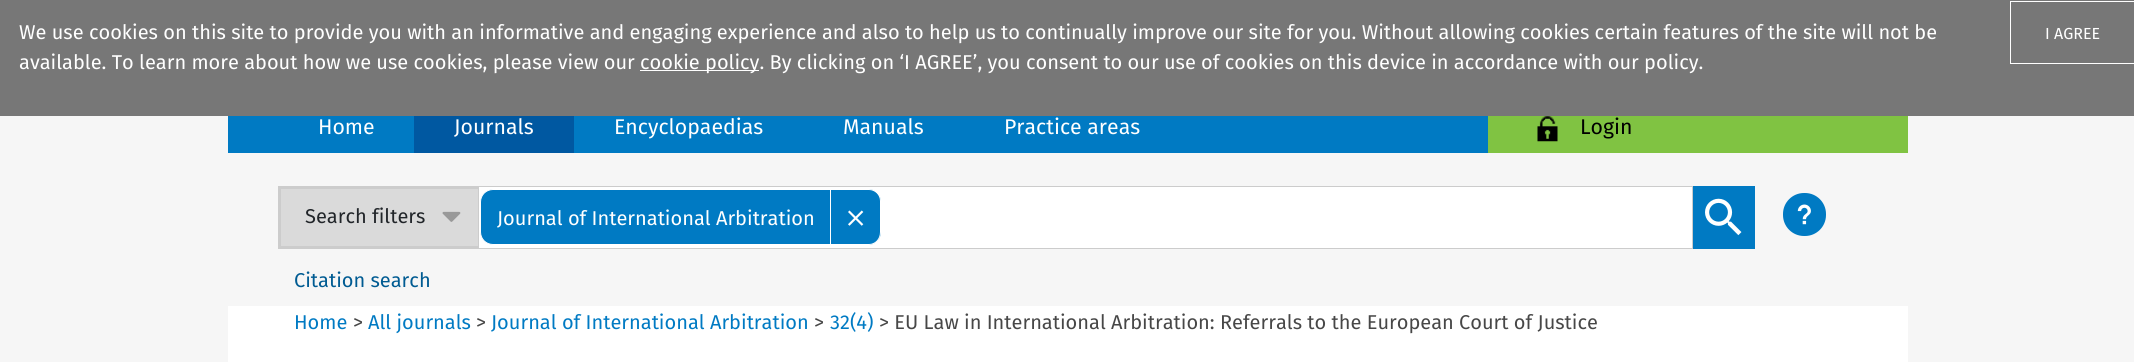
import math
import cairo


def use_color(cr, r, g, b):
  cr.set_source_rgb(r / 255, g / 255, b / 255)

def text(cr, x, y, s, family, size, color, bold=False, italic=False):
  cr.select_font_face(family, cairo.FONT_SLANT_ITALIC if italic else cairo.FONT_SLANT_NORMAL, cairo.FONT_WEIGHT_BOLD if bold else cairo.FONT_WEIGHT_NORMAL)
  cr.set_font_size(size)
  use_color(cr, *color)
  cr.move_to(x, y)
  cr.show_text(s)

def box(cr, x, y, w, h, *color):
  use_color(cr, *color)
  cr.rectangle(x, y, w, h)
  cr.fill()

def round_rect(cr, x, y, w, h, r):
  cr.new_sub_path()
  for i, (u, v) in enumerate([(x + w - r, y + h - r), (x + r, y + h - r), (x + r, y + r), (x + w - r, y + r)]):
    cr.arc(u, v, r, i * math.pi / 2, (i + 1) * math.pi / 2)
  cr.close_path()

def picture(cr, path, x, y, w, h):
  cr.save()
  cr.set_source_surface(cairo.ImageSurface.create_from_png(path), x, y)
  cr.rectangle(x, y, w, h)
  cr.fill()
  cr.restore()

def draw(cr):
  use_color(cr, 246, 246, 246)
  cr.paint()
  box(cr, 0, 0, 2134, 116, 119, 119, 119)
  box(cr, 640, 70, 119, 1, 255, 255, 255)
  cr.rectangle(2010.5, 1.5, 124, 62)
  cr.set_line_width(1)
  cr.stroke()
  box(cr, 228, 116, 1260, 37, 0, 122, 195)
  box(cr, 414, 116, 160, 37, 0, 88, 161)
  box(cr, 1488, 116, 420, 37, 128, 195, 66)
  picture(cr, "img_01.png", 1537, 116, 21, 26)
  box(cr, 281, 189, 197, 57, 218, 218, 218)
  box(cr, 278, 186, 200, 3, 204, 204, 204)
  box(cr, 278, 246, 200, 3, 204, 204, 204)
  box(cr, 278, 186, 3, 63, 204, 204, 204)
  picture(cr, "img_02.png", 442, 211, 19, 11)
  use_color(cr, 255, 255, 255)
  cr.rectangle(478.5, 186.5, 1214, 62)
  cr.fill_preserve()
  use_color(cr, 204, 204, 204)
  cr.stroke()
  use_color(cr, 0, 122, 195)
  cr.new_path()
  cr.move_to(493, 189.5)
  cr.line_to(830.5, 189.5)
  cr.line_to(830.5, 244.5)
  cr.line_to(493, 244.5)
  cr.curve_to(486, 244.5, 480.5, 239, 480.5, 232)
  cr.line_to(480.5, 202)
  cr.curve_to(480.5, 195, 486, 189.5, 493, 189.5)
  cr.close_path()
  cr.fill_preserve()
  use_color(cr, 255, 255, 255)
  cr.stroke()
  use_color(cr, 0, 122, 195)
  cr.new_path()
  cr.move_to(831, 189)
  cr.line_to(868, 189)
  cr.curve_to(875, 189, 881, 195, 881, 202)
  cr.line_to(881, 232)
  cr.curve_to(881, 239, 875, 245, 868, 245)
  cr.line_to(831, 245)
  cr.close_path()
  cr.fill()
  use_color(cr, 255, 255, 255)
  cr.set_fill_rule(cairo.FILL_RULE_EVEN_ODD)
  cr.new_path()
  cr.move_to(831, 189)
  cr.line_to(869, 189)
  cr.curve_to(876, 189, 881, 194, 881, 201)
  cr.line_to(881, 232)
  cr.curve_to(881, 239, 876, 245, 869, 245)
  cr.line_to(831, 245)
  cr.close_path()
  cr.move_to(831, 190)
  cr.line_to(869, 190)
  cr.curve_to(875, 190, 880, 195, 880, 201)
  cr.line_to(880, 232)
  cr.curve_to(880, 239, 875, 244, 869, 244)
  cr.line_to(831, 244)
  cr.close_path()
  cr.fill()
  picture(cr, "img_03.png", 848, 210, 16, 16)
  box(cr, 1693, 186, 62, 63, 0, 122, 195)
  picture(cr, "img_04.png", 1705, 198, 37, 38)
  round_rect(cr, 1783, 193, 43, 43, 21)
  cr.fill()
  picture(cr, "img_05.png", 1797, 204, 14, 21)
  box(cr, 228, 306, 1680, 56, 255, 255, 255)
  text(cr, 19, 39, "We use cookies on this site to provide you with an informative and engaging experience and also to help us to continually improve our site for you. Without allowing cookies certain features of the site will not be", "Fira Sans", 20, (255, 255, 255))
  text(cr, 19, 69, "available. To learn more about how we use cookies, please view our", "Fira Sans", 20, (255, 255, 255))
  text(cr, 640, 69, "cookie policy. By clicking on ‘I AGREE’, you consent to our use of cookies on this device in accordance with our policy.", "Fira Sans", 20, (255, 255, 255))
  text(cr, 2045, 39, "I AGREE", "Fira Sans", 16, (255, 255, 255))
  text(cr, 318, 134, "Home", "Fira Sans", 21.25, (255, 255, 255))
  text(cr, 454, 134, "Journals", "Fira Sans", 21.25, (255, 255, 255))
  text(cr, 614, 134, "Encyclopaedias", "Fira Sans", 21.25, (255, 255, 255))
  text(cr, 843, 134, "Manuals", "Fira Sans", 21.25, (255, 255, 255))
  text(cr, 1004, 134, "Practice areas", "Fira Sans", 21.25, (255, 255, 255))
  text(cr, 1580, 134, "Login", "Fira Sans", 21.25, (0, 0, 0))
  text(cr, 305, 223, "Search filters", "Fira Sans", 20, (33, 37, 41))
  text(cr, 497, 225, "Journal of International Arbitration", "Fira Sans", 20, (255, 255, 255))
  text(cr, 294, 287, "Citation search", "Fira Sans", 20, (0, 91, 146))
  text(cr, 294, 329, "Home", "Fira Sans", 20, (0, 122, 195))
  text(cr, 353, 329, ">", "Fira Sans", 20, (71, 71, 71))
  text(cr, 368, 329, "All journals", "Fira Sans", 20, (0, 122, 195))
  text(cr, 476, 329, ">", "Fira Sans", 20, (71, 71, 71))
  text(cr, 491, 329, "Journal of International Arbitration", "Fira Sans", 20, (0, 122, 195))
  text(cr, 814, 329, ">", "Fira Sans", 20, (71, 71, 71))
  text(cr, 830, 329, "32(4)", "Fira Sans", 20, (0, 122, 195))
  text(cr, 879, 329, "> EU Law in International Arbitration: Referrals to the European Court of Justice", "Fira Sans", 20, (71, 71, 71))


surface = cairo.ImageSurface(cairo.FORMAT_RGB24, 2134, 362)
cr = cairo.Context(surface)
options = cairo.FontOptions()
options.set_hint_metrics(cairo.HINT_METRICS_OFF)
options.set_hint_style(cairo.HINT_STYLE_NONE)
cr.set_font_options(options)
cr.set_miter_limit(4)
draw(cr)
surface.write_to_png("out.png")
